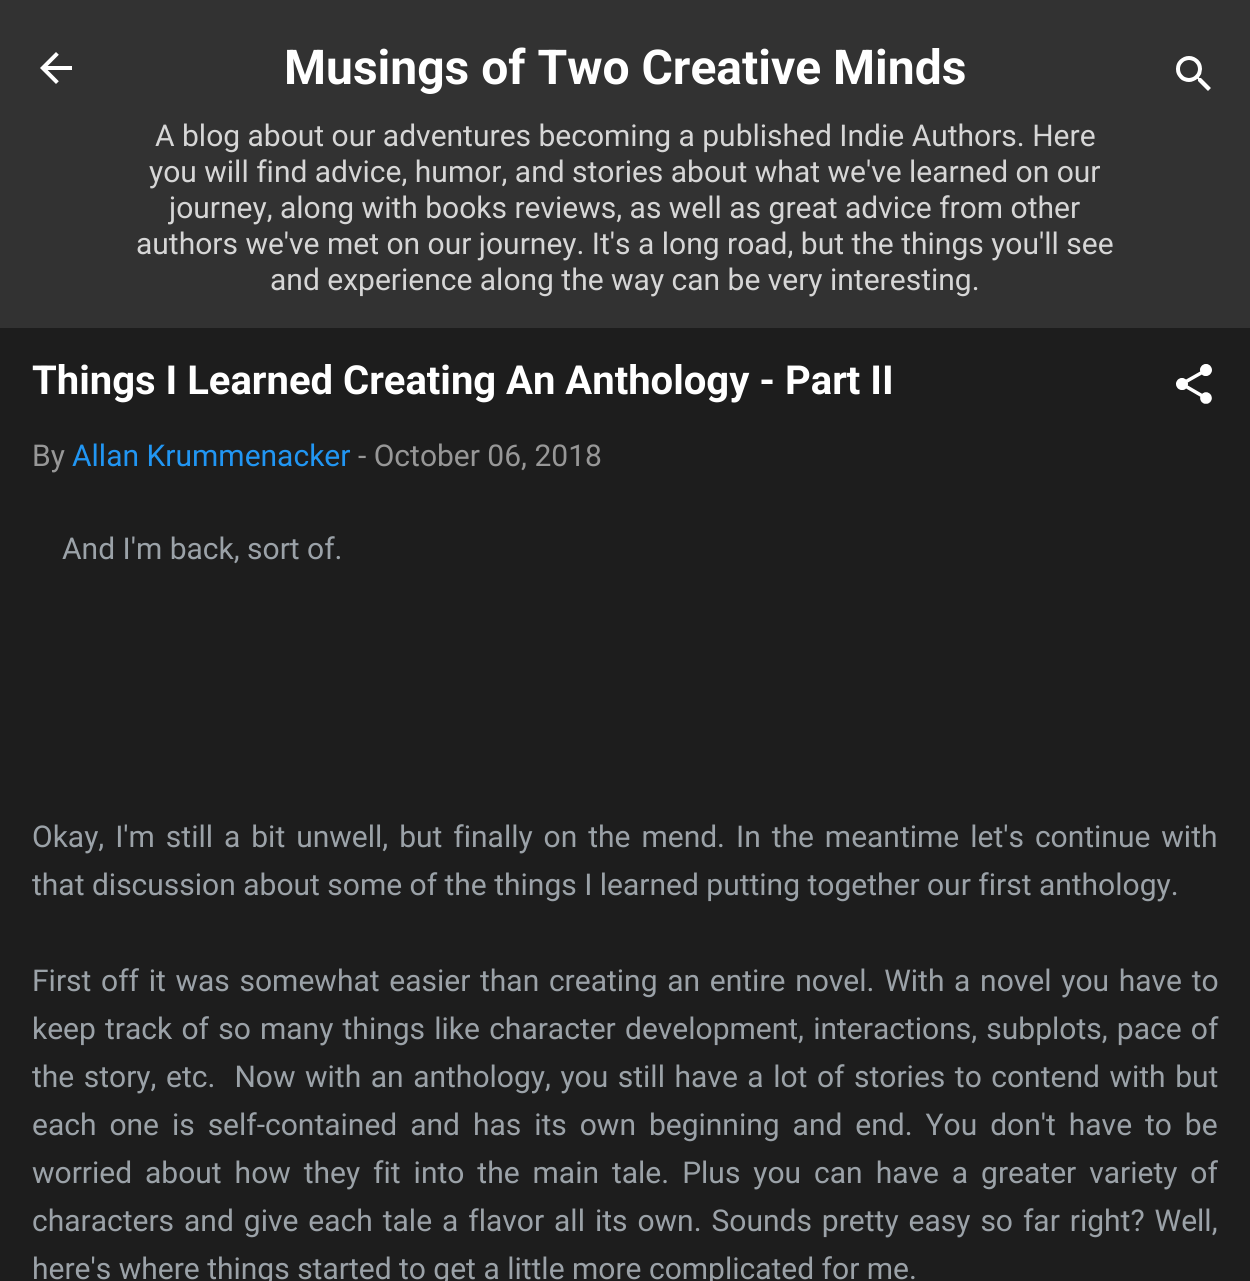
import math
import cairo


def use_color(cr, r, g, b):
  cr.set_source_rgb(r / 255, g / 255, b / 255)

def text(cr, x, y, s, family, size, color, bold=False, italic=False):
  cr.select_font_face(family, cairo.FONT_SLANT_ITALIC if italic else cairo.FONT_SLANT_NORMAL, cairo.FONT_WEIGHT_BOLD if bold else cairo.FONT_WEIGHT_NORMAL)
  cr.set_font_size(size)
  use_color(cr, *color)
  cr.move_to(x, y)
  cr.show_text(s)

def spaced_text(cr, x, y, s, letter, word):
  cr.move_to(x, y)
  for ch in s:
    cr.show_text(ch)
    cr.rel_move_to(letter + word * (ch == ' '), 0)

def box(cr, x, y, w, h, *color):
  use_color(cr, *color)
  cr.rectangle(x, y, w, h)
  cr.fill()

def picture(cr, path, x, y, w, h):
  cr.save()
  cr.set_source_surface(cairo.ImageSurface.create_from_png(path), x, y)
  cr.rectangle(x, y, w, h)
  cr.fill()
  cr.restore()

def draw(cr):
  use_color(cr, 50, 50, 50)
  cr.paint()
  picture(cr, "img_01.png", 40, 52, 32, 32)
  picture(cr, "img_02.png", 1176, 56, 35, 35)
  box(cr, 0, 328, 1250, 953, 29, 29, 29)
  picture(cr, "img_03.png", 1176, 364, 36, 40)
  text(cr, 284, 84, "Musings of Two Creative Minds", "Roboto", 48, (255, 255, 255), bold=True)
  text(cr, 155, 146, "A blog about our adventures becoming a published Indie Authors. Here", "Roboto", 30, (214, 214, 214))
  text(cr, 149, 182, "you will find advice, humor, and stories about what we've learned on our", "Roboto", 30, (214, 214, 214))
  text(cr, 169, 218, "journey, along with books reviews, as well as great advice from other", "Roboto", 30, (214, 214, 214))
  text(cr, 136, 254, "authors we've met on our journey. It's a long road, but the things you'll see", "Roboto", 30, (214, 214, 214))
  text(cr, 270, 290, "and experience along the way can be very interesting.", "Roboto", 30, (214, 214, 214))
  text(cr, 32, 394, "Things I Learned Creating An Anthology - Part II", "Roboto", 40, (255, 255, 255), bold=True)
  text(cr, 32, 466, "By", "Roboto", 30, (151, 151, 151))
  text(cr, 72, 466, "Allan Krummenacker", "Roboto", 30, (33, 150, 243))
  text(cr, 358, 466, "- October 06, 2018", "Roboto", 30, (151, 151, 151))
  text(cr, 62, 559, "And I'm back, sort of.", "Roboto", 30, (155, 162, 168))
  spaced_text(cr, 32, 847, "Okay, I'm still a bit unwell, but finally on the mend. In the meantime let's continue with", 0, 3.5)
  text(cr, 32, 895, "that discussion about some of the things I learned putting together our first anthology.", "Roboto", 30, (155, 162, 168))
  spaced_text(cr, 32, 991, "First off it was somewhat easier than creating an entire novel. With a novel you have to", 0, 2.25)
  spaced_text(cr, 32, 1039, "keep track of so many things like character development, interactions, subplots, pace of", 0, 1.75)
  spaced_text(cr, 32, 1087, "the story, etc.  Now with an anthology, you still have a lot of stories to contend with but", 0, 2.1)
  spaced_text(cr, 32, 1135, "each one is self-contained and has its own beginning and end. You don't have to be", 0, 5.5)
  spaced_text(cr, 32, 1183, "worried about how they fit into the main tale. Plus you can have a greater variety of", 0, 5.5)
  spaced_text(cr, 32, 1231, "characters and give each tale a flavor all its own. Sounds pretty easy so far right? Well,", 0, 2.5)
  text(cr, 32, 1279, "here's where things started to get a little more complicated for me.", "Roboto", 30, (155, 162, 168))


surface = cairo.ImageSurface(cairo.FORMAT_RGB24, 1250, 1281)
cr = cairo.Context(surface)
options = cairo.FontOptions()
options.set_hint_metrics(cairo.HINT_METRICS_OFF)
options.set_hint_style(cairo.HINT_STYLE_NONE)
cr.set_font_options(options)
cr.set_miter_limit(4)
draw(cr)
surface.write_to_png("out.png")
